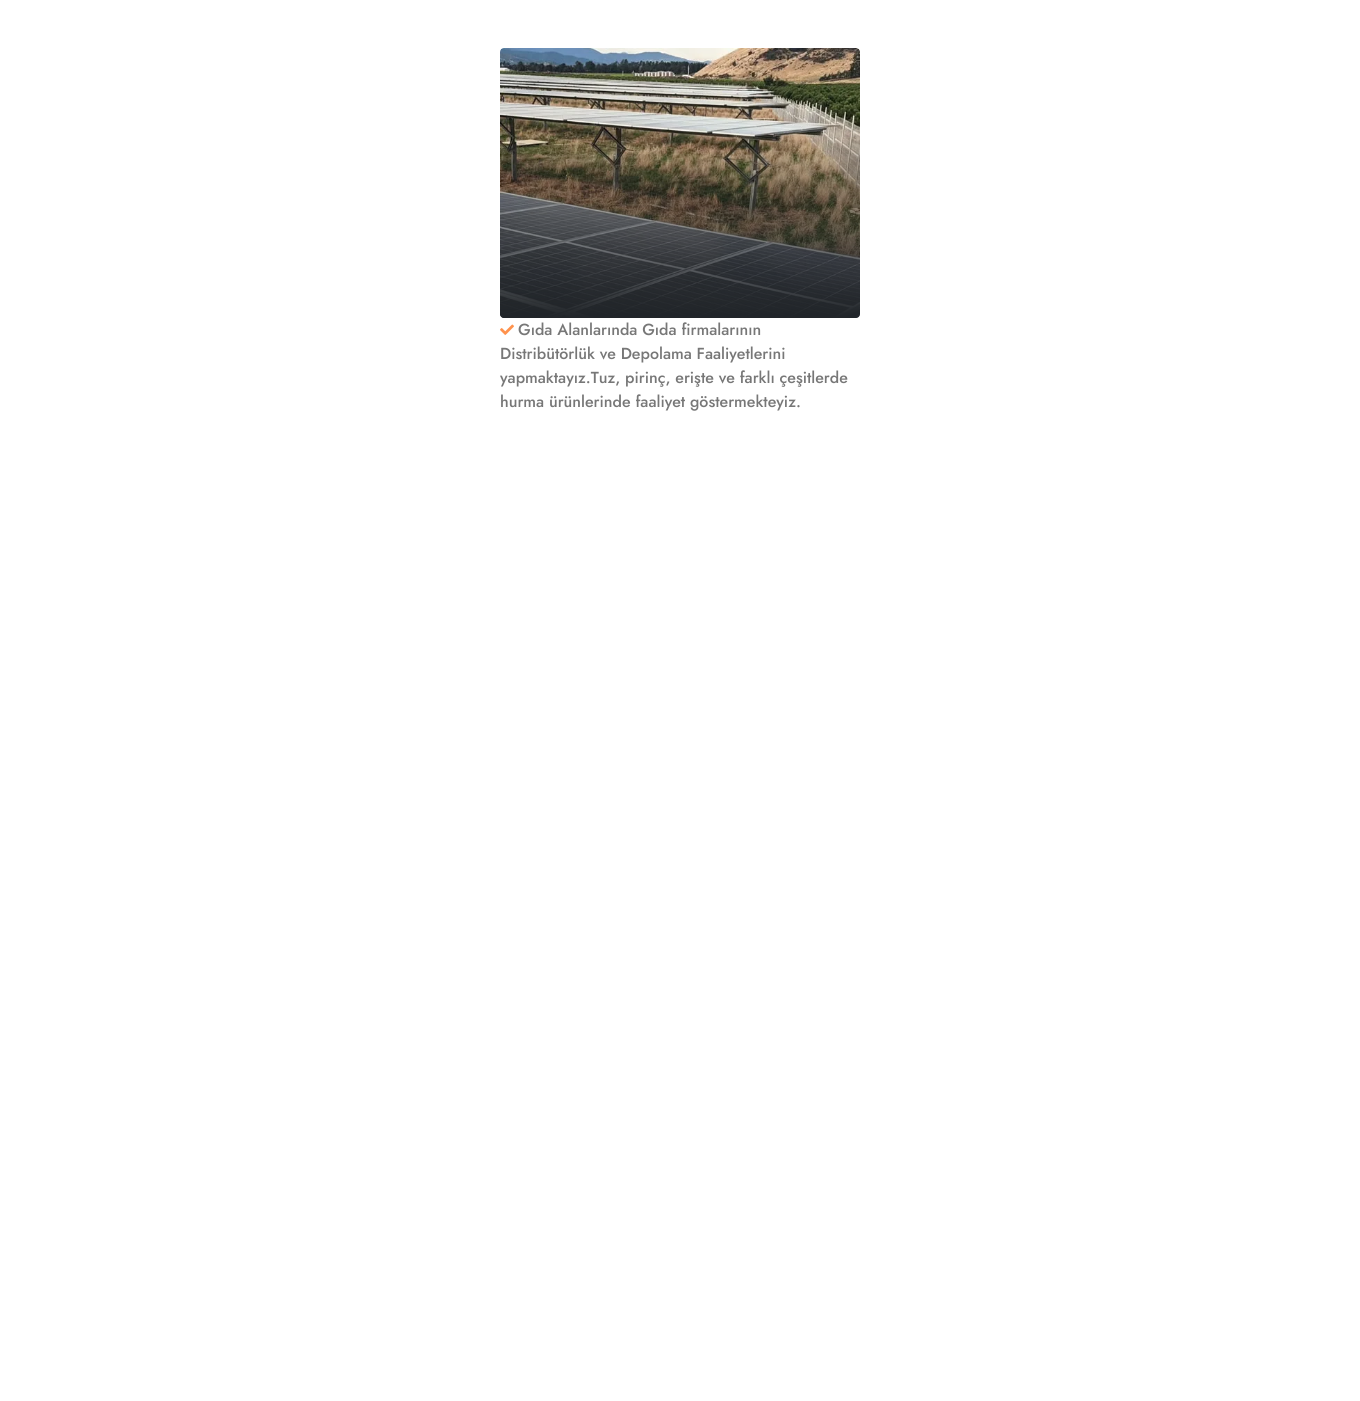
import math
import cairo


def use_color(cr, r, g, b):
  cr.set_source_rgb(r / 255, g / 255, b / 255)

def text(cr, x, y, s, family, size, color, bold=False, italic=False):
  cr.select_font_face(family, cairo.FONT_SLANT_ITALIC if italic else cairo.FONT_SLANT_NORMAL, cairo.FONT_WEIGHT_BOLD if bold else cairo.FONT_WEIGHT_NORMAL)
  cr.set_font_size(size)
  use_color(cr, *color)
  cr.move_to(x, y)
  cr.show_text(s)

def round_rect(cr, x, y, w, h, r):
  cr.new_sub_path()
  for i, (u, v) in enumerate([(x + w - r, y + h - r), (x + r, y + h - r), (x + r, y + r), (x + w - r, y + r)]):
    cr.arc(u, v, r, i * math.pi / 2, (i + 1) * math.pi / 2)
  cr.close_path()

def picture(cr, path, x, y, w, h):
  cr.save()
  cr.set_source_surface(cairo.ImageSurface.create_from_png(path), x, y)
  cr.rectangle(x, y, w, h)
  cr.fill()
  cr.restore()

def draw(cr):
  use_color(cr, 255, 255, 255)
  cr.paint()
  picture(cr, "img_01.png", 500, 48, 360, 270)
  gradient = cairo.LinearGradient(680, 48, 680, 318)
  gradient.add_color_stop_rgba(0.3, 0.129, 0.145, 0.161, 0)
  gradient.add_color_stop_rgba(1, 0.129, 0.145, 0.161, 1)
  cr.set_source(gradient)
  round_rect(cr, 500, 48, 360, 270, 4)
  cr.fill()
  picture(cr, "img_02.png", 500, 324, 14, 11)
  text(cr, 518, 335, "Gıda Alanlarında Gıda firmalarının", "Jost Medium", 16, (119, 119, 119))
  text(cr, 500, 359, "Distribütörlük ve Depolama Faaliyetlerini", "Jost Medium", 16, (119, 119, 119))
  text(cr, 500, 383, "yapmaktayız.Tuz, pirinç, erişte ve farklı çeşitlerde", "Jost Medium", 16, (119, 119, 119))
  text(cr, 500, 407, "hurma ürünlerinde faaliyet göstermekteyiz.", "Jost Medium", 16, (119, 119, 119))


surface = cairo.ImageSurface(cairo.FORMAT_RGB24, 1360, 1401)
cr = cairo.Context(surface)
options = cairo.FontOptions()
options.set_hint_metrics(cairo.HINT_METRICS_OFF)
options.set_hint_style(cairo.HINT_STYLE_NONE)
cr.set_font_options(options)
cr.set_miter_limit(4)
draw(cr)
surface.write_to_png("out.png")
